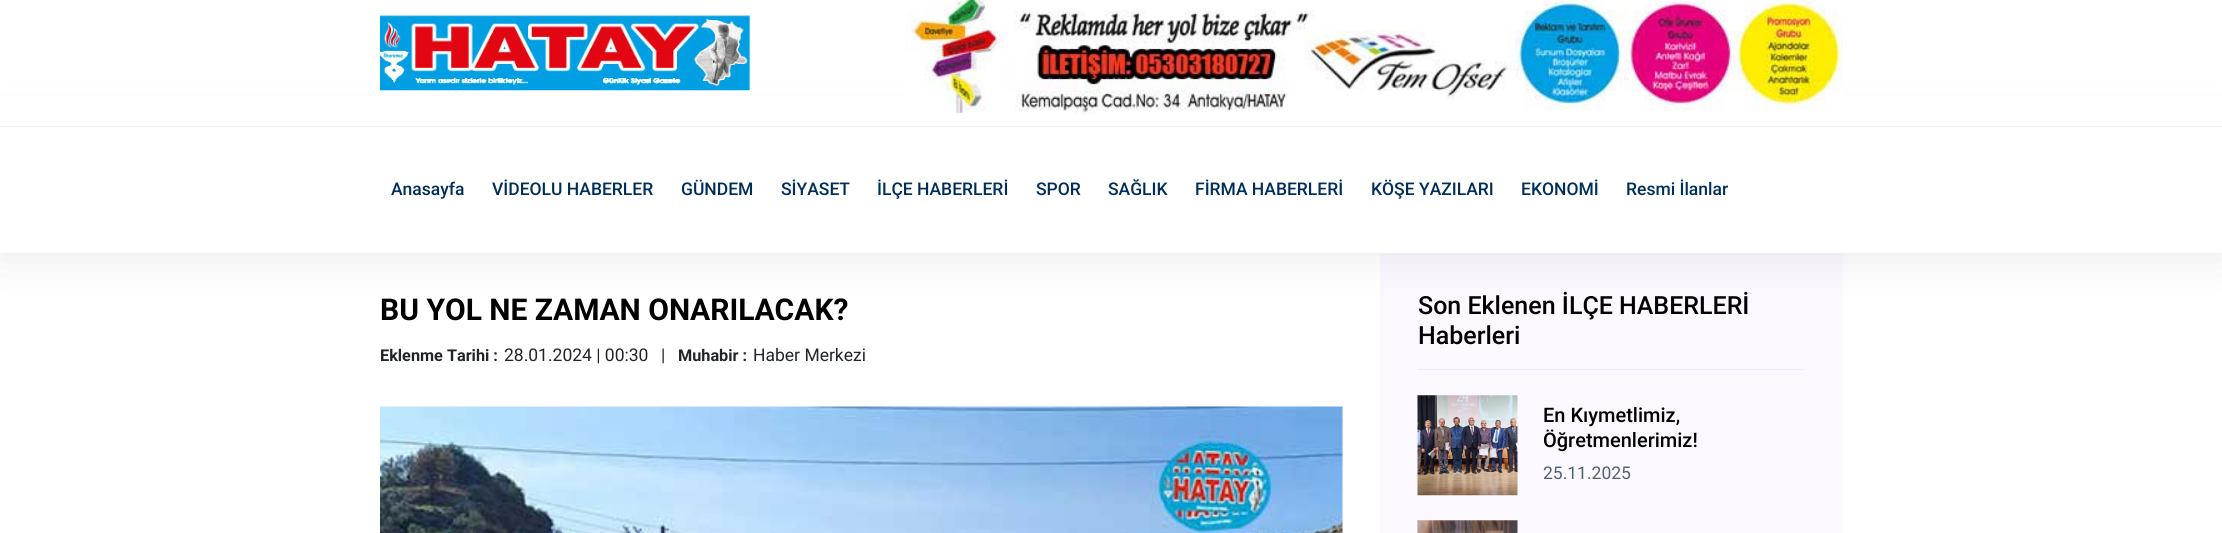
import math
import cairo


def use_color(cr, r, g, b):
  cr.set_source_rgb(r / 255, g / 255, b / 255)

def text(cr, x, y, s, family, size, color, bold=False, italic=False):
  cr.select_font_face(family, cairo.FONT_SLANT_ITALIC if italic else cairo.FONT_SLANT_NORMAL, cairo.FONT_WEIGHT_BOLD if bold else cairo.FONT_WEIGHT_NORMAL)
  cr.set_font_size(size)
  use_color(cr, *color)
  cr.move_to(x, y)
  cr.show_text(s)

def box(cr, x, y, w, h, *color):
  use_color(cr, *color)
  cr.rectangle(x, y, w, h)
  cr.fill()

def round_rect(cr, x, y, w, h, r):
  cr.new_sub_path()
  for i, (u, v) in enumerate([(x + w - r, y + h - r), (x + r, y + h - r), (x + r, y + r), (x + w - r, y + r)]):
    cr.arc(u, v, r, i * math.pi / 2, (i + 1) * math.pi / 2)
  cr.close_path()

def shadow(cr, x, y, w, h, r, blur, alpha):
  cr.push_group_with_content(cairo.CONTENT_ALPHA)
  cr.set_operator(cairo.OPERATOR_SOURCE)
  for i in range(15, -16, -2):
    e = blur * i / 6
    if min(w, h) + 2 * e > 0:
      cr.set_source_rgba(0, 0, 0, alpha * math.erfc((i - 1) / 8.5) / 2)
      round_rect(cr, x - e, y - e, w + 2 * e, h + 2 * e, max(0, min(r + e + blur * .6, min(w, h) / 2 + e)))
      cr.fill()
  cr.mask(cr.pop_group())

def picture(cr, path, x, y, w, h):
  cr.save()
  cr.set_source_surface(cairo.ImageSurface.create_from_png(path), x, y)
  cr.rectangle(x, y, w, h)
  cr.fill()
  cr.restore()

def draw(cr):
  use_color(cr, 255, 255, 255)
  cr.paint()
  box(cr, 1380, 253, 463, 280, 251, 249, 255)
  cr.save()
  cr.set_fill_rule(cairo.FILL_RULE_EVEN_ODD)
  cr.new_path()
  cr.move_to(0, 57)
  cr.line_to(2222, 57)
  cr.line_to(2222, 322)
  cr.line_to(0, 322)
  cr.close_path()
  cr.move_to(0, 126)
  cr.line_to(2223, 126)
  cr.line_to(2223, 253)
  cr.line_to(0, 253)
  cr.close_path()
  cr.clip()
  use_color(cr, 0, 0, 0)
  shadow(cr, 0, 126, 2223, 127, 0, 22.5, 0.1)
  cr.restore()
  box(cr, 0, 97, 2222, 29, 255, 255, 255)
  picture(cr, "img_01.png", 380, 15, 370, 76)
  picture(cr, "img_02.png", 905, 0, 938, 115)
  box(cr, 0, 126, 2222, 1, 238, 238, 238)
  picture(cr, "img_03.png", 380, 406, 963, 127)
  box(cr, 1418, 369, 387, 1, 240, 233, 255)
  picture(cr, "img_04.png", 1417, 395, 101, 101)
  picture(cr, "img_05.png", 1417, 520, 101, 13)
  text(cr, 391, 195, "Anasayfa", "Roboto Medium", 17.5, (0, 46, 91))
  text(cr, 492, 195, "VİDEOLU HABERLER", "Roboto Medium", 17.5, (0, 46, 91))
  text(cr, 681, 195, "GÜNDEM", "Roboto Medium", 17.5, (0, 46, 91))
  text(cr, 781, 195, "SİYASET", "Roboto Medium", 17.5, (0, 46, 91))
  text(cr, 877, 195, "İLÇE HABERLERİ", "Roboto Medium", 17.5, (0, 46, 91))
  text(cr, 1036, 195, "SPOR", "Roboto Medium", 17.5, (0, 46, 91))
  text(cr, 1108, 195, "SAĞLIK", "Roboto Medium", 17.5, (0, 46, 91))
  text(cr, 1195, 195, "FİRMA HABERLERİ", "Roboto Medium", 17.5, (0, 46, 91))
  text(cr, 1371, 195, "KÖŞE YAZILARI", "Roboto Medium", 17.5, (0, 46, 91))
  text(cr, 1521, 195, "EKONOMİ", "Roboto Medium", 17.5, (0, 46, 91))
  text(cr, 1626, 195, "Resmi İlanlar", "Roboto Medium", 17.5, (0, 46, 91))
  text(cr, 380, 320, "BU YOL NE ZAMAN ONARILACAK?", "Roboto", 30, (0, 0, 0), bold=True)
  text(cr, 380, 361, "Eklenme Tarihi :", "Roboto", 16.25, (33, 37, 41), bold=True)
  text(cr, 504, 361, "28.01.2024 | 00:30", "Roboto", 17.5, (33, 37, 41))
  text(cr, 661, 361, "|", "Roboto", 17.5, (33, 37, 41))
  text(cr, 678, 361, "Muhabir :", "Roboto", 16.25, (33, 37, 41), bold=True)
  text(cr, 753, 361, "Haber Merkezi", "Roboto", 17.5, (33, 37, 41))
  text(cr, 1418, 314, "Son Eklenen İLÇE HABERLERİ", "Roboto Medium", 25, (0, 0, 0))
  text(cr, 1418, 344, "Haberleri", "Roboto Medium", 25, (0, 0, 0))
  text(cr, 1543, 422, "En Kıymetlimiz,", "Roboto Medium", 20, (0, 0, 0))
  text(cr, 1543, 447, "Öğretmenlerimiz!", "Roboto Medium", 20, (0, 0, 0))
  text(cr, 1543, 479, "25.11.2025", "Roboto", 17.5, (80, 97, 114))


surface = cairo.ImageSurface(cairo.FORMAT_RGB24, 2222, 533)
cr = cairo.Context(surface)
options = cairo.FontOptions()
options.set_hint_metrics(cairo.HINT_METRICS_OFF)
options.set_hint_style(cairo.HINT_STYLE_NONE)
cr.set_font_options(options)
cr.set_miter_limit(4)
draw(cr)
surface.write_to_png("out.png")
